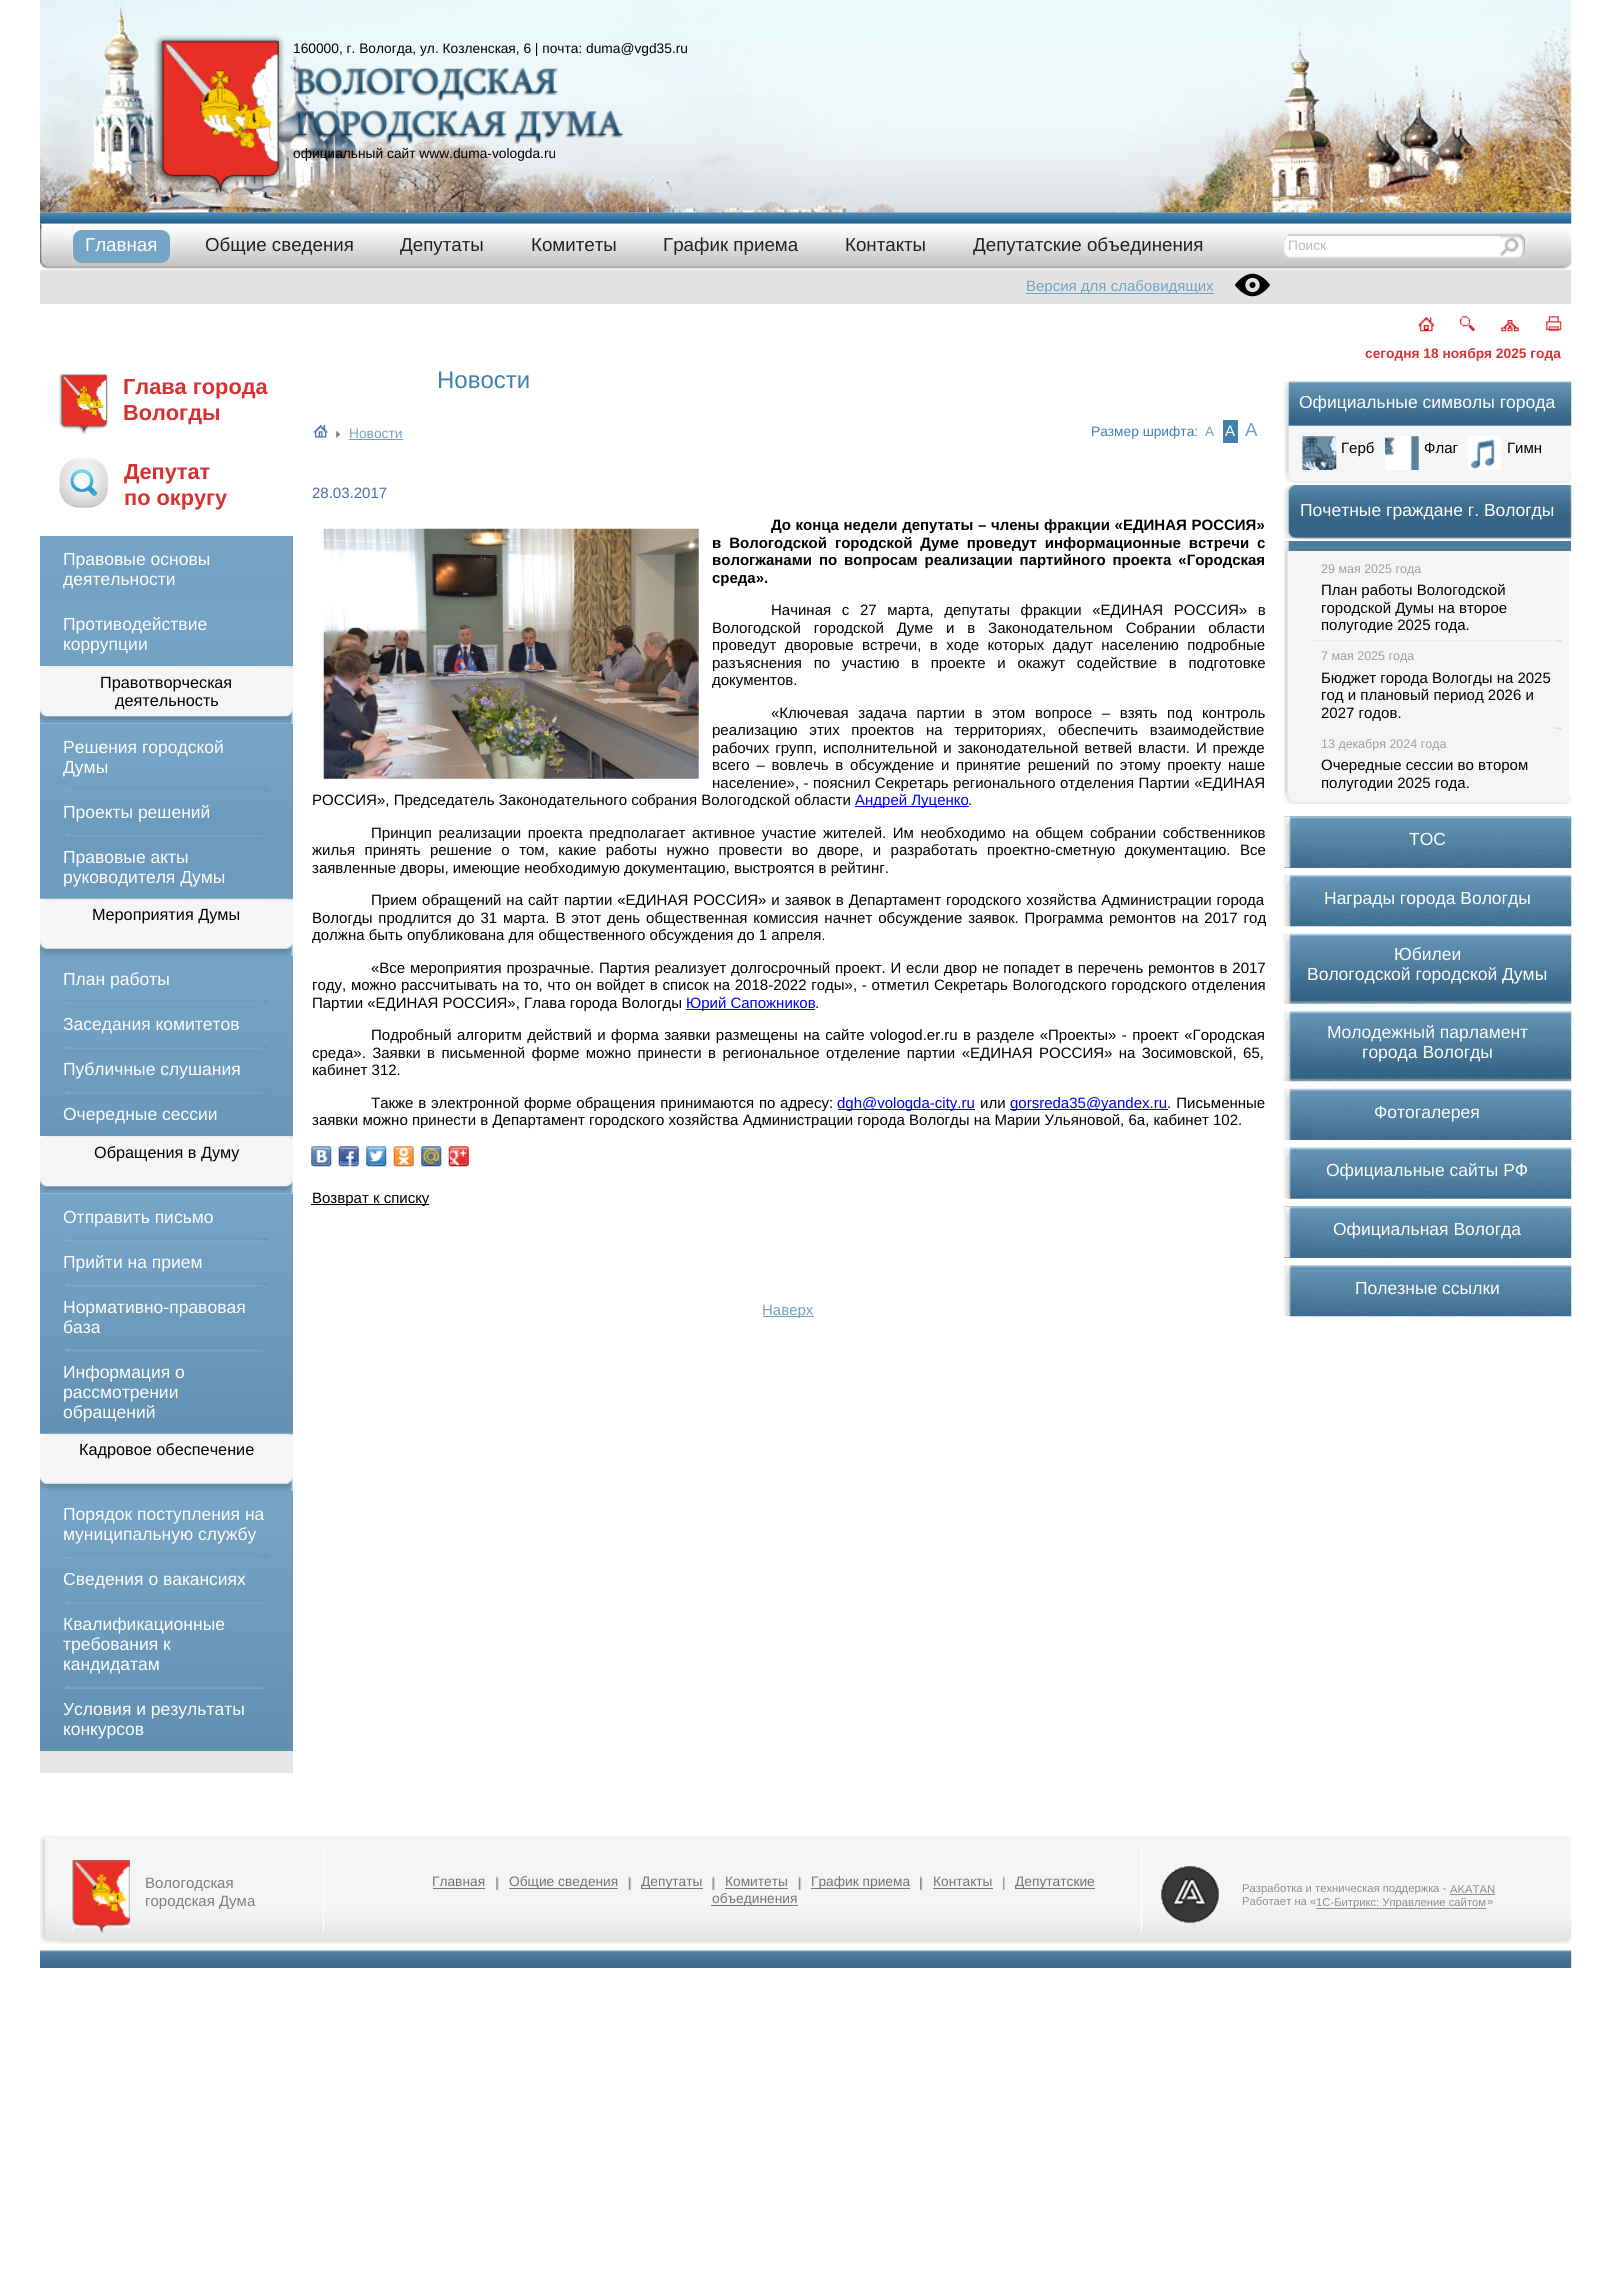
import math
import cairo


def use_color(cr, r, g, b):
  cr.set_source_rgb(r / 255, g / 255, b / 255)

def text(cr, x, y, s, family, size, color, bold=False, italic=False):
  cr.select_font_face(family, cairo.FONT_SLANT_ITALIC if italic else cairo.FONT_SLANT_NORMAL, cairo.FONT_WEIGHT_BOLD if bold else cairo.FONT_WEIGHT_NORMAL)
  cr.set_font_size(size)
  use_color(cr, *color)
  cr.move_to(x, y)
  cr.show_text(s)

def spaced_text(cr, x, y, s, letter, word):
  cr.move_to(x, y)
  for ch in s:
    cr.show_text(ch)
    cr.rel_move_to(letter + word * (ch == ' '), 0)

def box(cr, x, y, w, h, *color):
  use_color(cr, *color)
  cr.rectangle(x, y, w, h)
  cr.fill()

def round_rect(cr, x, y, w, h, r):
  cr.new_sub_path()
  for i, (u, v) in enumerate([(x + w - r, y + h - r), (x + r, y + h - r), (x + r, y + r), (x + w - r, y + r)]):
    cr.arc(u, v, r, i * math.pi / 2, (i + 1) * math.pi / 2)
  cr.close_path()

def picture(cr, path, x, y, w, h):
  cr.save()
  cr.set_source_surface(cairo.ImageSurface.create_from_png(path), x, y)
  cr.rectangle(x, y, w, h)
  cr.fill()
  cr.restore()

def draw(cr):
  use_color(cr, 255, 255, 255)
  cr.paint()
  box(cr, 40, 0, 859, 213, 237, 242, 245)
  picture(cr, "img_01.png", 40, 0, 859, 213)
  picture(cr, "img_02.png", 154, 35, 130, 164)
  picture(cr, "img_03.png", 294, 67, 329, 77)
  picture(cr, "img_04.png", 899, 0, 219, 213)
  picture(cr, "img_05.png", 1117, 0, 455, 213)
  picture(cr, "img_06.png", 40, 212, 1532, 12)
  box(cr, 40, 224, 33, 80, 226, 226, 227)
  picture(cr, "img_07.png", 40, 223, 33, 47)
  box(cr, 73, 270, 1498, 34, 226, 226, 227)
  picture(cr, "img_08.png", 72, 223, 1478, 47)
  use_color(cr, 117, 164, 198)
  round_rect(cr, 73, 230, 97, 33, 9)
  cr.fill()
  picture(cr, "img_09.png", 1283, 233, 242, 25)
  picture(cr, "img_10.png", 1499, 233, 26, 25)
  box(cr, 1286, 236, 214, 18, 255, 255, 255)
  box(cr, 1026, 293, 188, 1, 113, 161, 193)
  picture(cr, "img_11.png", 1235, 273, 35, 24)
  picture(cr, "img_12.png", 1550, 223, 22, 47)
  picture(cr, "img_13.png", 59, 373, 50, 62)
  picture(cr, "img_14.png", 59, 458, 49, 50)
  box(cr, 40, 536, 253, 130, 108, 155, 189)
  picture(cr, "img_15.png", 40, 536, 253, 65)
  picture(cr, "img_15.png", 40, 601, 253, 65)
  box(cr, 40, 666, 253, 58, 245, 245, 245)
  picture(cr, "img_16.png", 40, 666, 253, 58)
  box(cr, 40, 724, 253, 175, 108, 155, 189)
  picture(cr, "img_17.png", 40, 723, 253, 85)
  picture(cr, "img_18.png", 65, 788, 203, 4)
  picture(cr, "img_19.png", 65, 833, 203, 4)
  box(cr, 292, 899, 1, 57, 245, 245, 245)
  picture(cr, "img_20.png", 40, 898, 253, 58)
  box(cr, 40, 956, 253, 180, 108, 155, 189)
  picture(cr, "img_21.png", 40, 956, 253, 180)
  picture(cr, "img_22.png", 65, 1001, 203, 3)
  picture(cr, "img_23.png", 65, 1046, 203, 3)
  picture(cr, "img_24.png", 65, 1091, 203, 3)
  box(cr, 40, 1136, 253, 58, 245, 245, 245)
  picture(cr, "img_25.png", 40, 1136, 253, 58)
  box(cr, 40, 1194, 253, 240, 108, 155, 189)
  picture(cr, "img_26.png", 40, 1193, 253, 241)
  picture(cr, "img_27.png", 65, 1238, 203, 4)
  picture(cr, "img_28.png", 65, 1283, 203, 4)
  picture(cr, "img_29.png", 65, 1348, 203, 4)
  box(cr, 292, 1434, 1, 57, 245, 245, 245)
  picture(cr, "img_30.png", 40, 1433, 253, 58)
  box(cr, 40, 1491, 253, 260, 108, 155, 189)
  picture(cr, "img_31.png", 40, 1491, 253, 260)
  picture(cr, "img_32.png", 65, 1556, 203, 3)
  picture(cr, "img_33.png", 65, 1601, 203, 3)
  picture(cr, "img_34.png", 65, 1686, 203, 3)
  box(cr, 40, 1751, 253, 22, 230, 230, 230)
  picture(cr, "img_35.png", 313, 425, 15, 13)
  picture(cr, "img_36.png", 336, 431, 4, 7)
  box(cr, 349, 439, 54, 1, 113, 161, 193)
  box(cr, 1223, 420, 15, 23, 66, 129, 172)
  picture(cr, "img_37.png", 323, 528, 376, 251)
  box(cr, 855, 806, 114, 1, 0, 0, 255)
  box(cr, 686, 1009, 129, 1, 0, 0, 255)
  box(cr, 838, 1109, 137, 1, 0, 0, 255)
  box(cr, 1010, 1109, 158, 1, 0, 0, 255)
  picture(cr, "img_38.png", 311, 1146, 21, 21)
  picture(cr, "img_39.png", 338, 1146, 21, 21)
  picture(cr, "img_40.png", 366, 1146, 21, 21)
  picture(cr, "img_41.png", 393, 1146, 21, 21)
  picture(cr, "img_42.png", 421, 1146, 21, 21)
  picture(cr, "img_43.png", 448, 1146, 21, 21)
  box(cr, 311, 1204, 118, 1, 0, 0, 0)
  box(cr, 763, 1316, 51, 1, 113, 161, 193)
  picture(cr, "img_44.png", 1418, 317, 16, 15)
  picture(cr, "img_45.png", 1460, 316, 15, 16)
  picture(cr, "img_46.png", 1501, 320, 18, 12)
  picture(cr, "img_47.png", 1546, 316, 16, 16)
  picture(cr, "img_48.png", 1283, 381, 289, 46)
  box(cr, 1284, 426, 287, 47, 245, 245, 245)
  picture(cr, "img_49.png", 1285, 426, 4, 47)
  picture(cr, "img_50.png", 1302, 436, 35, 34)
  picture(cr, "img_51.png", 1385, 436, 34, 34)
  picture(cr, "img_52.png", 1467, 436, 34, 34)
  box(cr, 1284, 482, 287, 1, 245, 245, 245)
  picture(cr, "img_53.png", 1284, 473, 288, 10)
  picture(cr, "img_54.png", 1284, 485, 288, 54)
  box(cr, 1284, 541, 287, 10, 77, 126, 159)
  picture(cr, "img_55.png", 1283, 541, 6, 11)
  box(cr, 1284, 551, 285, 243, 245, 245, 245)
  picture(cr, "img_56.png", 1284, 551, 4, 243)
  picture(cr, "img_57.png", 1314, 640, 248, 3)
  picture(cr, "img_58.png", 1314, 727, 248, 3)
  picture(cr, "img_59.png", 1284, 794, 288, 10)
  box(cr, 1284, 816, 287, 52, 77, 126, 159)
  picture(cr, "img_60.png", 1283, 816, 289, 52)
  picture(cr, "img_61.png", 1283, 875, 289, 52)
  picture(cr, "img_62.png", 1283, 933, 289, 71)
  picture(cr, "img_63.png", 1283, 1011, 289, 71)
  picture(cr, "img_64.png", 1283, 1088, 289, 52)
  picture(cr, "img_65.png", 1283, 1147, 289, 52)
  box(cr, 1284, 1206, 287, 52, 77, 126, 159)
  picture(cr, "img_60.png", 1283, 1206, 289, 52)
  picture(cr, "img_61.png", 1283, 1265, 289, 52)
  box(cr, 40, 1835, 18, 109, 245, 245, 245)
  picture(cr, "img_66.png", 40, 1835, 18, 109)
  box(cr, 58, 1943, 1497, 1, 245, 245, 245)
  picture(cr, "img_67.png", 57, 1835, 1498, 108)
  box(cr, 323, 1846, 1, 87, 255, 255, 255)
  picture(cr, "img_68.png", 72, 1860, 58, 73)
  box(cr, 433, 1888, 52, 1, 116, 116, 116)
  picture(cr, "img_69.png", 496, 1876, 3, 14)
  box(cr, 509, 1888, 109, 1, 116, 116, 116)
  picture(cr, "img_70.png", 628, 1876, 4, 14)
  box(cr, 641, 1888, 62, 1, 116, 116, 116)
  picture(cr, "img_71.png", 712, 1876, 3, 14)
  box(cr, 725, 1888, 63, 1, 116, 116, 116)
  picture(cr, "img_70.png", 798, 1876, 4, 14)
  box(cr, 811, 1888, 99, 1, 116, 116, 116)
  picture(cr, "img_72.png", 920, 1876, 3, 14)
  box(cr, 933, 1888, 60, 1, 116, 116, 116)
  picture(cr, "img_73.png", 1003, 1876, 2, 14)
  box(cr, 1015, 1888, 80, 1, 116, 116, 116)
  box(cr, 711, 1905, 87, 1, 116, 116, 116)
  box(cr, 1141, 1846, 1, 87, 255, 255, 255)
  picture(cr, "img_74.png", 1161, 1866, 58, 57)
  box(cr, 1450, 1894, 45, 1, 142, 142, 142)
  box(cr, 1316, 1908, 170, 1, 142, 142, 142)
  picture(cr, "img_75.png", 1555, 1835, 17, 109)
  box(cr, 40, 1967, 1531, 1, 67, 115, 149)
  picture(cr, "img_76.png", 40, 1950, 1532, 18)
  text(cr, 293, 53, "160000, г. Вологда, ул. Козленская, 6 | почта: duma@vgd35.ru", "Liberation Sans", 13.75, (0, 0, 0))
  text(cr, 293, 158, "официальный сайт www.duma-vologda.ru", "Liberation Sans", 13.75, (0, 0, 0))
  text(cr, 85, 251, "Главная", "Liberation Sans", 18.75, (255, 255, 255))
  text(cr, 205, 251, "Общие сведения", "Liberation Sans", 18.75, (33, 33, 33))
  text(cr, 400, 251, "Депутаты", "Liberation Sans", 18.75, (33, 33, 33))
  text(cr, 531, 251, "Комитеты", "Liberation Sans", 18.75, (33, 33, 33))
  text(cr, 663, 251, "График приема", "Liberation Sans", 18.75, (33, 33, 33))
  text(cr, 845, 251, "Контакты", "Liberation Sans", 18.75, (33, 33, 33))
  text(cr, 973, 251, "Депутатские объединения", "Liberation Sans", 18.75, (33, 33, 33))
  text(cr, 1288, 250, "Поиск", "Liberation Sans", 13.75, (187, 187, 187))
  text(cr, 1026, 291, "Версия для слабовидящих", "Liberation Sans", 15, (113, 161, 193))
  text(cr, 123, 394, "Глава города", "Liberation Sans", 21.75, (215, 49, 49), bold=True)
  text(cr, 123, 420, "Вологды", "Liberation Sans", 21.75, (215, 49, 49), bold=True)
  text(cr, 124, 479, "Депутат", "Liberation Sans", 21.75, (215, 49, 49), bold=True)
  text(cr, 124, 505, "по округу", "Liberation Sans", 21.75, (215, 49, 49), bold=True)
  text(cr, 63, 565, "Правовые основы", "Liberation Sans", 17.5, (255, 255, 255))
  text(cr, 63, 585, "деятельности", "Liberation Sans", 17.5, (255, 255, 255))
  text(cr, 63, 630, "Противодействие", "Liberation Sans", 17.5, (255, 255, 255))
  text(cr, 63, 650, "коррупции", "Liberation Sans", 17.5, (255, 255, 255))
  text(cr, 100, 688, "Правотворческая", "Liberation Sans", 16.25, (0, 0, 0))
  text(cr, 115, 706, "деятельность", "Liberation Sans", 16.25, (0, 0, 0))
  text(cr, 63, 753, "Решения городской", "Liberation Sans", 17.5, (255, 255, 255))
  text(cr, 63, 773, "Думы", "Liberation Sans", 17.5, (255, 255, 255))
  text(cr, 63, 818, "Проекты решений", "Liberation Sans", 17.5, (255, 255, 255))
  text(cr, 63, 863, "Правовые акты", "Liberation Sans", 17.5, (255, 255, 255))
  text(cr, 63, 883, "руководителя Думы", "Liberation Sans", 17.5, (255, 255, 255))
  text(cr, 92, 920, "Мероприятия Думы", "Liberation Sans", 16.25, (0, 0, 0))
  text(cr, 63, 985, "План работы", "Liberation Sans", 17.5, (255, 255, 255))
  text(cr, 63, 1030, "Заседания комитетов", "Liberation Sans", 17.5, (255, 255, 255))
  text(cr, 63, 1075, "Публичные слушания", "Liberation Sans", 17.5, (255, 255, 255))
  text(cr, 63, 1120, "Очередные сессии", "Liberation Sans", 17.5, (255, 255, 255))
  text(cr, 94, 1158, "Обращения в Думу", "Liberation Sans", 16.25, (0, 0, 0))
  text(cr, 63, 1223, "Отправить письмо", "Liberation Sans", 17.5, (255, 255, 255))
  text(cr, 63, 1268, "Прийти на прием", "Liberation Sans", 17.5, (255, 255, 255))
  text(cr, 63, 1313, "Нормативно-правовая", "Liberation Sans", 17.5, (255, 255, 255))
  text(cr, 63, 1333, "база", "Liberation Sans", 17.5, (255, 255, 255))
  text(cr, 63, 1378, "Информация о", "Liberation Sans", 17.5, (255, 255, 255))
  text(cr, 63, 1398, "рассмотрении", "Liberation Sans", 17.5, (255, 255, 255))
  text(cr, 63, 1418, "обращений", "Liberation Sans", 17.5, (255, 255, 255))
  text(cr, 79, 1455, "Кадровое обеспечение", "Liberation Sans", 16.25, (0, 0, 0))
  text(cr, 63, 1520, "Порядок поступления на", "Liberation Sans", 17.5, (255, 255, 255))
  text(cr, 63, 1540, "муниципальную службу", "Liberation Sans", 17.5, (255, 255, 255))
  text(cr, 63, 1585, "Сведения о вакансиях", "Liberation Sans", 17.5, (255, 255, 255))
  text(cr, 63, 1630, "Квалификационные", "Liberation Sans", 17.5, (255, 255, 255))
  text(cr, 63, 1650, "требования к", "Liberation Sans", 17.5, (255, 255, 255))
  text(cr, 63, 1670, "кандидатам", "Liberation Sans", 17.5, (255, 255, 255))
  text(cr, 63, 1715, "Условия и результаты", "Liberation Sans", 17.5, (255, 255, 255))
  text(cr, 63, 1735, "конкурсов", "Liberation Sans", 17.5, (255, 255, 255))
  text(cr, 437, 388, "Новости", "Liberation Sans", 24, (66, 129, 172))
  text(cr, 349, 438, "Новости", "Liberation Sans", 13.75, (113, 161, 193))
  text(cr, 1091, 436, "Размер шрифта:", "Liberation Sans", 13.75, (66, 129, 172))
  text(cr, 1205, 436, "А", "Liberation Sans", 13.75, (113, 161, 193))
  text(cr, 1225, 436, "А", "Liberation Sans", 15, (255, 255, 255))
  text(cr, 1245, 436, "А", "Liberation Sans", 18.75, (113, 161, 193))
  text(cr, 312, 498, "28.03.2017", "Liberation Sans", 15, (72, 109, 170))
  cr.select_font_face("Liberation Sans", cairo.FONT_SLANT_NORMAL, cairo.FONT_WEIGHT_BOLD)
  use_color(cr, 0, 0, 0)
  spaced_text(cr, 771, 530, "До конца недели депутаты – члены фракции «ЕДИНАЯ РОССИЯ»", 0, 0.5)
  spaced_text(cr, 712, 548, "в Вологодской городской Думе проведут информационные встречи с", 0, 3.75)
  spaced_text(cr, 712, 565, "вологжанами по вопросам реализации партийного проекта «Городская", 0, 2.75)
  text(cr, 712, 583, "среда».", "Liberation Sans", 15, (0, 0, 0), bold=True)
  cr.select_font_face("Liberation Sans")
  spaced_text(cr, 771, 615, "Начиная с 27 марта, депутаты фракции «ЕДИНАЯ РОССИЯ» в", 0, 6.5)
  spaced_text(cr, 712, 633, "Вологодской городской Думе и в Законодательном Собрании области", 0, 8.75)
  spaced_text(cr, 712, 650, "проведут дворовые встречи, в ходе которых дадут населению подробные", 0, 4.25)
  spaced_text(cr, 712, 668, "разъяснения по участию в проекте и окажут содействие в подготовке", 0, 7.5)
  text(cr, 712, 685, "документов.", "Liberation Sans", 15, (0, 0, 0))
  spaced_text(cr, 771, 718, "«Ключевая задача партии в этом вопросе – взять под контроль", 0, 5.5)
  spaced_text(cr, 712, 735, "реализацию этих проектов на территориях, обеспечить взаимодействие", 0, 7.5)
  spaced_text(cr, 712, 753, "рабочих групп, исполнительной и законодательной ветвей власти. И прежде", 0, 1.75)
  spaced_text(cr, 712, 770, "всего – вовлечь в обсуждение и принятие решений по этому проекту наше", 0, 2.6)
  spaced_text(cr, 712, 788, "население», - пояснил Секретарь регионального отделения Партии «ЕДИНАЯ", 0, 0.25)
  text(cr, 312, 805, "РОССИЯ», Председатель Законодательного собрания Вологодской области", "Liberation Sans", 15, (0, 0, 0))
  text(cr, 855, 805, "Андрей Луценко", "Liberation Sans", 15, (0, 0, 255))
  text(cr, 968, 805, ".", "Liberation Sans", 15, (0, 0, 0))
  spaced_text(cr, 371, 838, "Принцип реализации проекта предполагает активное участие жителей. Им необходимо на общем собрании собственников", 0, 2.4)
  spaced_text(cr, 312, 855, "жилья принять решение о том, какие работы нужно провести во дворе, и разработать проектно-сметную документацию. Все", 0, 5.25)
  text(cr, 312, 873, "заявленные дворы, имеющие необходимую документацию, выстроятся в рейтинг.", "Liberation Sans", 15, (0, 0, 0))
  spaced_text(cr, 371, 905, "Прием обращений на сайт партии «ЕДИНАЯ РОССИЯ» и заявок в Департамент городского хозяйства Администрации города", 0, 0.75)
  spaced_text(cr, 312, 923, "Вологды продлится до 31 марта. В этот день общественная комиссия начнет обсуждение заявок. Программа ремонтов на 2017 год", 0, 1.75)
  text(cr, 312, 940, "должна быть опубликована для общественного обсуждения до 1 апреля.", "Liberation Sans", 15, (0, 0, 0))
  spaced_text(cr, 371, 973, "«Все мероприятия прозрачные. Партия реализует долгосрочный проект. И если двор не попадет в перечень ремонтов в 2017", 0, 0.6)
  spaced_text(cr, 312, 990, "году, можно рассчитывать на то, что он войдет в список на 2018-2022 годы», - отметил Секретарь Вологодского городского отделения", 0, 0.5)
  text(cr, 312, 1008, "Партии «ЕДИНАЯ РОССИЯ», Глава города Вологды", "Liberation Sans", 15, (0, 0, 0))
  text(cr, 686, 1008, "Юрий Сапожников", "Liberation Sans", 15, (0, 0, 255))
  text(cr, 815, 1008, ".", "Liberation Sans", 15, (0, 0, 0))
  spaced_text(cr, 371, 1040, "Подробный алгоритм действий и форма заявки размещены на сайте vologod.er.ru в разделе «Проекты» - проект «Городская", 0, 1.25)
  spaced_text(cr, 312, 1058, "среда». Заявки в письменной форме можно принести в региональное отделение партии «ЕДИНАЯ РОССИЯ» на Зосимовской, 65,", 0, 2.25)
  text(cr, 312, 1075, "кабинет 312.", "Liberation Sans", 15, (0, 0, 0))
  spaced_text(cr, 371, 1108, "Также в электронной форме обращения принимаются по адресу:", 0, 0.6)
  text(cr, 837, 1108, "dgh@vologda-city.ru", "Liberation Sans", 15, (0, 0, 255))
  text(cr, 980, 1108, "или", "Liberation Sans", 15, (0, 0, 0))
  text(cr, 1010, 1108, "gorsreda35@yandex.ru", "Liberation Sans", 15, (0, 0, 255))
  use_color(cr, 0, 0, 0)
  spaced_text(cr, 1167, 1108, ". Письменные", 0, 1)
  text(cr, 312, 1125, "заявки можно принести в Департамент городского хозяйства Администрации города Вологды на Марии Ульяновой, 6а, кабинет 102.", "Liberation Sans", 15, (0, 0, 0))
  text(cr, 312, 1203, "Возврат к списку", "Liberation Sans", 15, (0, 0, 0))
  text(cr, 762, 1315, "Наверх", "Liberation Sans", 15, (113, 161, 193))
  text(cr, 1365, 358, "сегодня 18 ноября 2025 года", "Liberation Sans", 13.75, (215, 49, 49), bold=True)
  text(cr, 1299, 408, "Официальные символы города", "Liberation Sans", 17.5, (255, 255, 255))
  text(cr, 1341, 453, "Герб", "Liberation Sans", 15, (0, 0, 0))
  text(cr, 1424, 453, "Флаг", "Liberation Sans", 15, (0, 0, 0))
  text(cr, 1507, 453, "Гимн", "Liberation Sans", 15, (0, 0, 0))
  text(cr, 1300, 516, "Почетные граждане г. Вологды", "Liberation Sans", 17.5, (255, 255, 255))
  text(cr, 1321, 573, "29 мая 2025 года", "Liberation Sans", 12.5, (156, 158, 159))
  text(cr, 1321, 595, "План работы Вологодской", "Liberation Sans", 15, (0, 0, 0))
  text(cr, 1321, 613, "городской Думы на второе", "Liberation Sans", 15, (0, 0, 0))
  text(cr, 1321, 630, "полугодие 2025 года.", "Liberation Sans", 15, (0, 0, 0))
  text(cr, 1321, 660, "7 мая 2025 года", "Liberation Sans", 12.5, (156, 158, 159))
  text(cr, 1321, 683, "Бюджет города Вологды на 2025", "Liberation Sans", 15, (0, 0, 0))
  text(cr, 1321, 700, "год и плановый период 2026 и", "Liberation Sans", 15, (0, 0, 0))
  text(cr, 1321, 718, "2027 годов.", "Liberation Sans", 15, (0, 0, 0))
  text(cr, 1321, 748, "13 декабря 2024 года", "Liberation Sans", 12.5, (156, 158, 159))
  text(cr, 1321, 770, "Очередные сессии во втором", "Liberation Sans", 15, (0, 0, 0))
  text(cr, 1321, 788, "полугодии 2025 года.", "Liberation Sans", 15, (0, 0, 0))
  text(cr, 1409, 845, "ТОС", "Liberation Sans", 17.5, (255, 255, 255))
  text(cr, 1324, 904, "Награды города Вологды", "Liberation Sans", 17.5, (255, 255, 255))
  text(cr, 1394, 960, "Юбилеи", "Liberation Sans", 17.5, (255, 255, 255))
  text(cr, 1307, 980, "Вологодской городской Думы", "Liberation Sans", 17.5, (255, 255, 255))
  text(cr, 1327, 1038, "Молодежный парламент", "Liberation Sans", 17.5, (255, 255, 255))
  text(cr, 1362, 1058, "города Вологды", "Liberation Sans", 17.5, (255, 255, 255))
  text(cr, 1374, 1118, "Фотогалерея", "Liberation Sans", 17.5, (255, 255, 255))
  text(cr, 1326, 1176, "Официальные сайты РФ", "Liberation Sans", 17.5, (255, 255, 255))
  text(cr, 1333, 1235, "Официальная Вологда", "Liberation Sans", 17.5, (255, 255, 255))
  text(cr, 1355, 1294, "Полезные ссылки", "Liberation Sans", 17.5, (255, 255, 255))
  text(cr, 145, 1888, "Вологодская", "Liberation Sans", 15, (126, 126, 126))
  text(cr, 145, 1906, "городская Дума", "Liberation Sans", 15, (126, 126, 126))
  text(cr, 432, 1886, "Главная", "Liberation Sans", 13.75, (116, 116, 116))
  text(cr, 509, 1886, "Общие сведения", "Liberation Sans", 13.75, (116, 116, 116))
  text(cr, 641, 1886, "Депутаты", "Liberation Sans", 13.75, (116, 116, 116))
  text(cr, 725, 1886, "Комитеты", "Liberation Sans", 13.75, (116, 116, 116))
  text(cr, 811, 1886, "График приема", "Liberation Sans", 13.75, (116, 116, 116))
  text(cr, 933, 1886, "Контакты", "Liberation Sans", 13.75, (116, 116, 116))
  text(cr, 1015, 1886, "Депутатские", "Liberation Sans", 13.75, (116, 116, 116))
  text(cr, 712, 1903, "объединения", "Liberation Sans", 13.75, (116, 116, 116))
  text(cr, 1242, 1892, "Разработка и техническая поддержка -", "Liberation Sans", 11.25, (142, 142, 142))
  text(cr, 1450, 1893, "AKATAN", "Liberation Sans", 11.25, (142, 142, 142))
  text(cr, 1242, 1905, "Работает на «", "Liberation Sans", 11.25, (142, 142, 142))
  text(cr, 1316, 1906, "1С-Битрикс: Управление сайтом", "Liberation Sans", 11.25, (142, 142, 142))
  text(cr, 1487, 1905, "»", "Liberation Sans", 11.25, (142, 142, 142))


surface = cairo.ImageSurface(cairo.FORMAT_RGB24, 1611, 2279)
cr = cairo.Context(surface)
options = cairo.FontOptions()
options.set_hint_metrics(cairo.HINT_METRICS_OFF)
options.set_hint_style(cairo.HINT_STYLE_NONE)
cr.set_font_options(options)
cr.set_miter_limit(4)
draw(cr)
surface.write_to_png("out.png")
